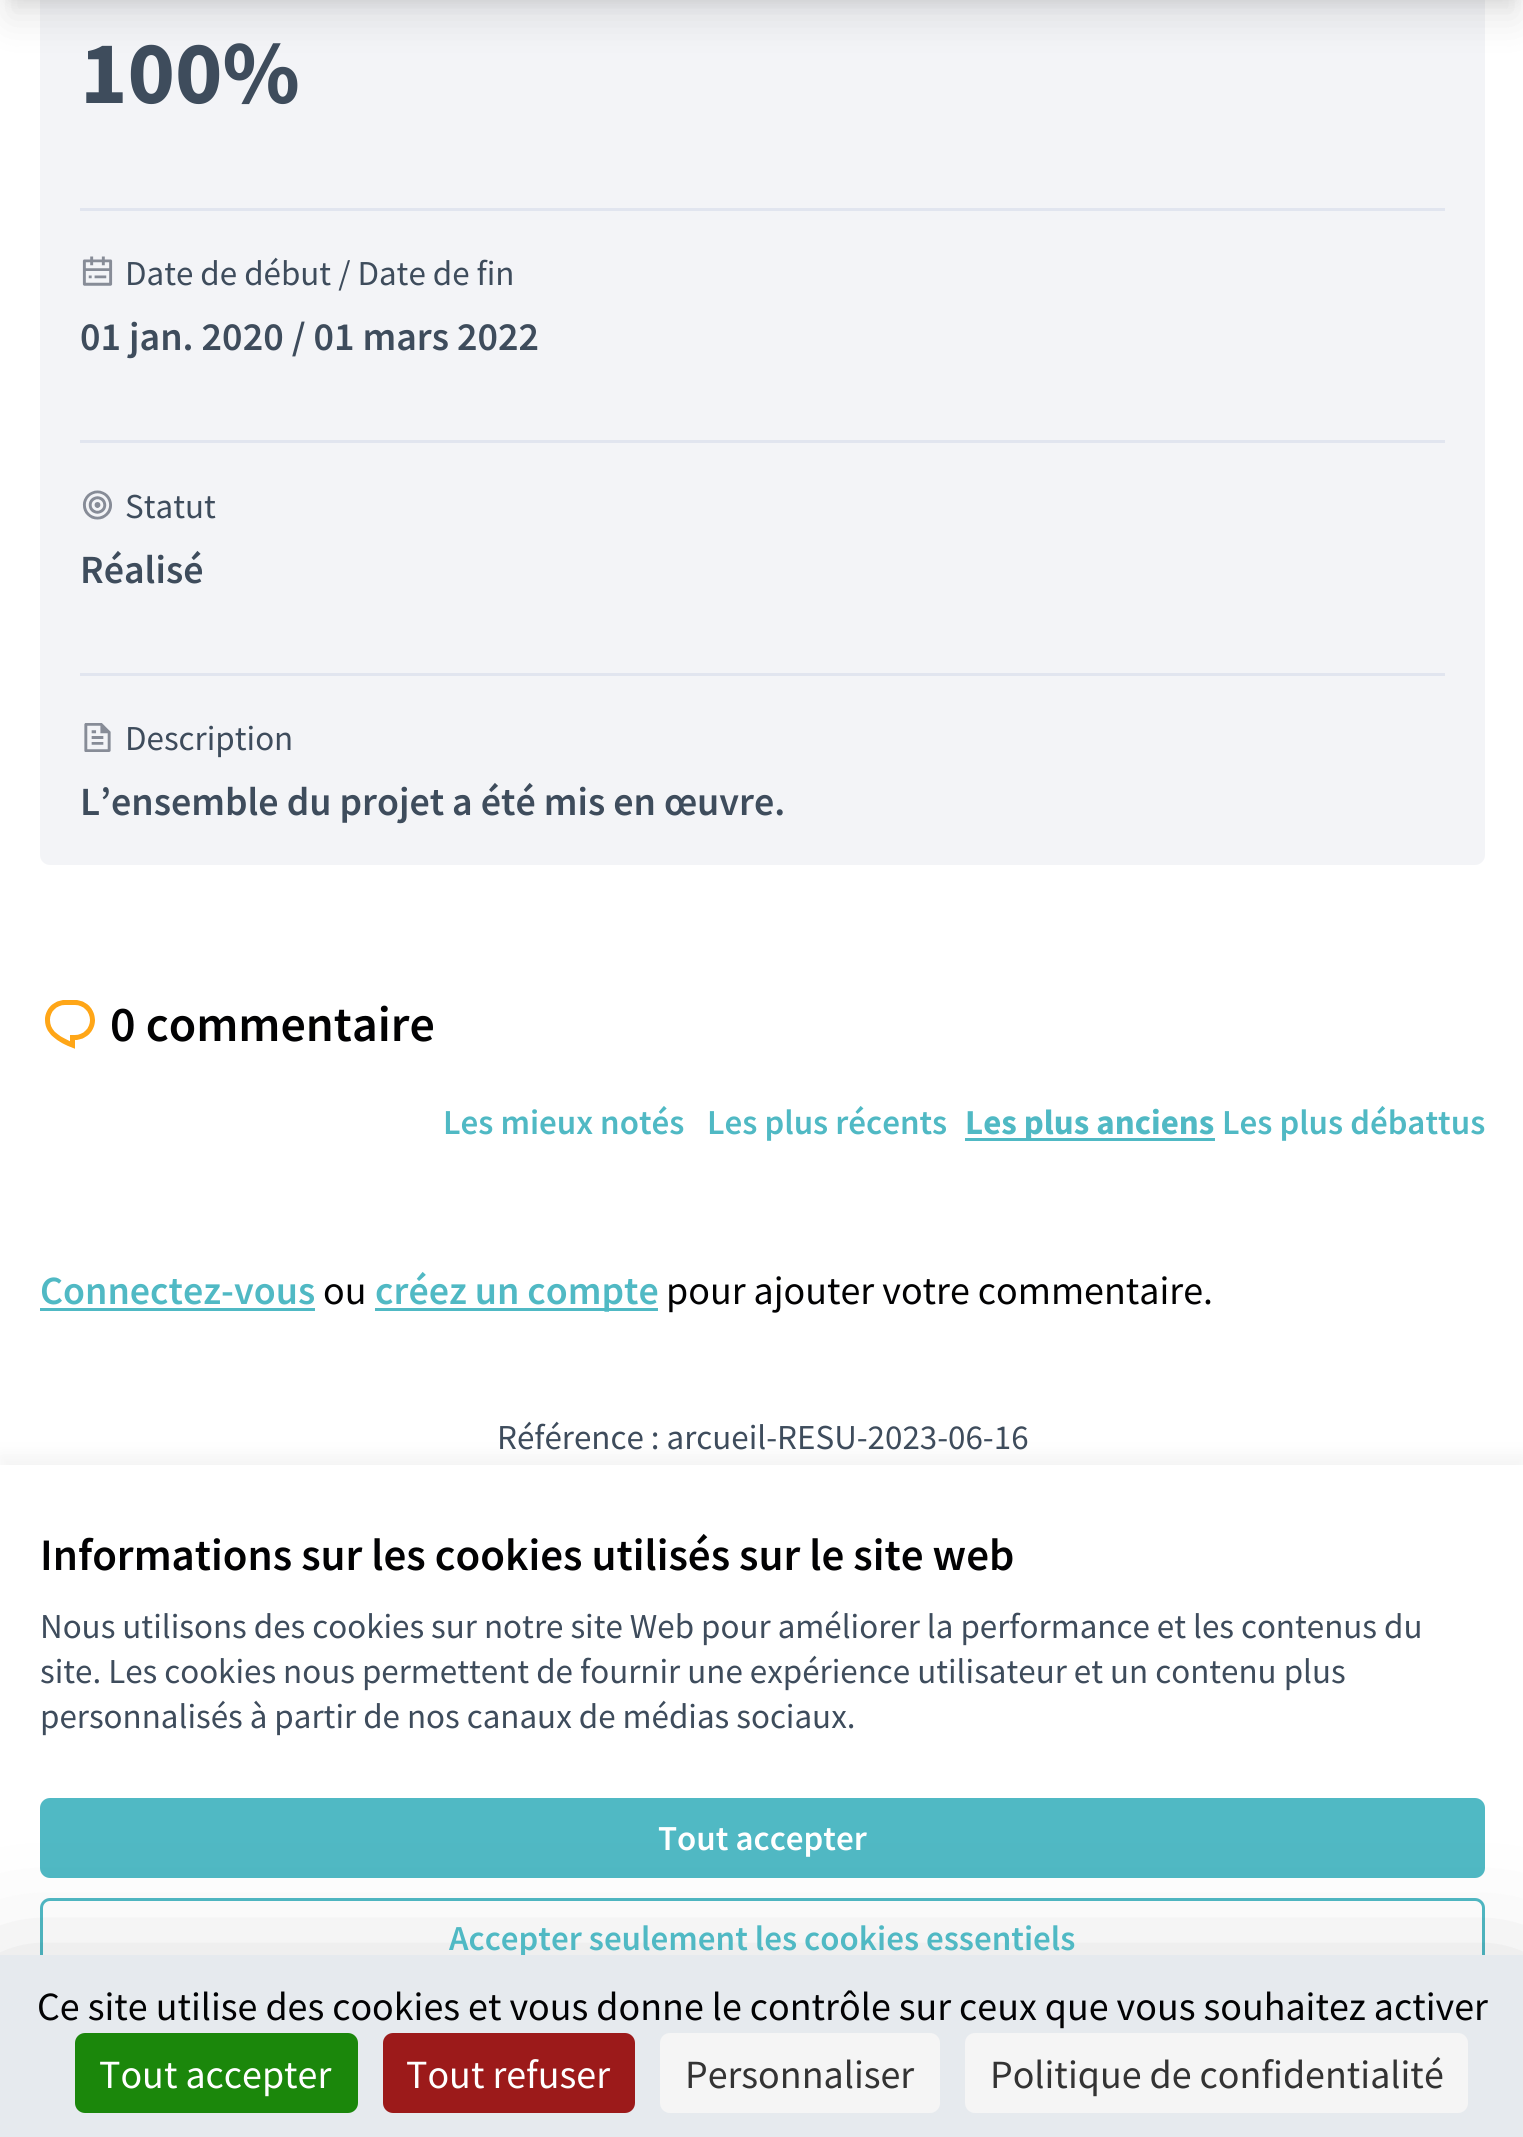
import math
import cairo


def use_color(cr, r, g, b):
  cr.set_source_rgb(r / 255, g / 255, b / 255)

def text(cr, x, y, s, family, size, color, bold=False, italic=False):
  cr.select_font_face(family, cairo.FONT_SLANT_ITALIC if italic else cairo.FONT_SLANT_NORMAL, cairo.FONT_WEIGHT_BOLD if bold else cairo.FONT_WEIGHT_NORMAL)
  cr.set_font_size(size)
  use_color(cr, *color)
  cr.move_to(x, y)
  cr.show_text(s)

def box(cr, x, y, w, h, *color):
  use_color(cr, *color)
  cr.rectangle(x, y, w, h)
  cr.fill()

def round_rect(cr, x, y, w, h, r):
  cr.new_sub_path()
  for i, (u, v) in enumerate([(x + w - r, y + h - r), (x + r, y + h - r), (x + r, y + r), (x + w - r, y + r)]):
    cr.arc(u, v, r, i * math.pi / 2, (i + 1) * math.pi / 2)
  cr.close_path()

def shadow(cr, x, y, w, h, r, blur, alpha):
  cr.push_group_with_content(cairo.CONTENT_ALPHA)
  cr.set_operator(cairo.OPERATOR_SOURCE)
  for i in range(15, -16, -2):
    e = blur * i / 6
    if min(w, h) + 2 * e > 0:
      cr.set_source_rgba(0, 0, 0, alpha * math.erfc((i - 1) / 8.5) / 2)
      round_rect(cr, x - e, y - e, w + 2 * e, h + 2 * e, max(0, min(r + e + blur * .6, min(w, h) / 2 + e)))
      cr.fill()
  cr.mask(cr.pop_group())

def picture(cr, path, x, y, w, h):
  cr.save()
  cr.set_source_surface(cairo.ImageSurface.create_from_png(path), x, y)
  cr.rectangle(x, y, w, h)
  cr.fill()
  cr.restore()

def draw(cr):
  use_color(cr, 255, 255, 255)
  cr.paint()
  use_color(cr, 243, 244, 247)
  round_rect(cr, 40, -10, 1445, 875, 10)
  cr.fill()
  use_color(cr, 0, 0, 0)
  shadow(cr, 10, -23, 1505, 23, 0, 7.5, 0.1)
  shadow(cr, 8, -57, 1510, 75, 0, 19, 0.1)
  box(cr, 80, 208, 1365, 3, 225, 229, 239)
  picture(cr, "img_01.png", 82, 256, 31, 30)
  box(cr, 80, 440, 1365, 3, 225, 229, 239)
  picture(cr, "img_02.png", 82, 490, 30, 30)
  box(cr, 80, 673, 1365, 3, 225, 229, 239)
  picture(cr, "img_03.png", 84, 723, 27, 29)
  picture(cr, "img_04.png", 45, 1000, 50, 49)
  box(cr, 965, 1138, 250, 3, 80, 185, 196)
  box(cr, 40, 1308, 275, 3, 80, 185, 196)
  box(cr, 375, 1308, 283, 3, 80, 185, 196)
  use_color(cr, 211, 211, 211)
  shadow(cr, 0, 1455, 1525, 673, 0, 7.5, 0.25)
  box(cr, 0, 1465, 1523, 490, 255, 255, 255)
  use_color(cr, 80, 185, 196)
  round_rect(cr, 40, 1798, 1445, 80, 10)
  cr.fill()
  round_rect(cr, 41.5, 1899.5, 1442, 77, 8.5)
  cr.set_line_width(3)
  cr.stroke()
  use_color(cr, 0, 0, 0)
  shadow(cr, 0, 2005, 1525, 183, 0, 75, 0.25)
  text(cr, 80, 103, "100%", "Source Sans Pro", 90, (62, 76, 92), bold=True)
  text(cr, 125, 285, "Date de début / Date de fin", "Source Sans Pro", 35, (62, 76, 92))
  text(cr, 80, 350, "01 jan. 2020 / 01 mars 2022", "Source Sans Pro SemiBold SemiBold", 40, (62, 76, 92))
  text(cr, 125, 518, "Statut", "Source Sans Pro", 35, (62, 76, 92))
  text(cr, 80, 583, "Réalisé", "Source Sans Pro SemiBold SemiBold", 40, (62, 76, 92))
  text(cr, 125, 750, "Description", "Source Sans Pro", 35, (62, 76, 92))
  text(cr, 80, 815, "L’ensemble du projet a été mis en œuvre.", "Source Sans Pro SemiBold SemiBold", 40, (62, 76, 92))
  text(cr, 110, 1041, "0 commentaire", "Source Sans Pro SemiBold SemiBold", 50, (2, 2, 3))
  text(cr, 443, 1134, "Les mieux notés", "Source Sans Pro SemiBold SemiBold", 35, (80, 185, 196))
  text(cr, 707, 1134, "Les plus récents", "Source Sans Pro SemiBold SemiBold", 35, (80, 185, 196))
  text(cr, 965, 1134, "Les plus anciens", "Source Sans Pro", 35, (80, 185, 196), bold=True)
  text(cr, 1222, 1134, "Les plus débattus", "Source Sans Pro SemiBold SemiBold", 35, (80, 185, 196))
  text(cr, 40, 1304, "Connectez-vous", "Source Sans Pro SemiBold SemiBold", 40, (80, 185, 196))
  text(cr, 323, 1304, "ou", "Source Sans Pro", 40, (2, 2, 3))
  text(cr, 375, 1304, "créez un compte", "Source Sans Pro SemiBold SemiBold", 40, (80, 185, 196))
  text(cr, 666, 1304, "pour ajouter votre commentaire.", "Source Sans Pro", 40, (2, 2, 3))
  text(cr, 497, 1449, "Référence : arcueil-RESU-2023-06-16", "Source Sans Pro", 35, (62, 76, 92))
  text(cr, 40, 1570, "Informations sur les cookies utilisés sur le site web", "Source Sans Pro SemiBold SemiBold", 45, (2, 2, 3))
  text(cr, 40, 1638, "Nous utilisons des cookies sur notre site Web pour améliorer la performance et les contenus du", "Source Sans Pro", 35, (62, 76, 92))
  text(cr, 40, 1683, "site. Les cookies nous permettent de fournir une expérience utilisateur et un contenu plus", "Source Sans Pro", 35, (62, 76, 92))
  text(cr, 40, 1728, "personnalisés à partir de nos canaux de médias sociaux.", "Source Sans Pro", 35, (62, 76, 92))
  text(cr, 658, 1850, "Tout accepter", "Source Sans Pro SemiBold SemiBold", 35, (255, 255, 255))
  text(cr, 449, 1950, "Accepter seulement les cookies essentiels", "Source Sans Pro SemiBold SemiBold", 35, (80, 185, 196))
  box(cr, 0, 1955, 1523, 182, 230, 234, 238)
  text(cr, 37, 2020, "Ce site utilise des cookies et vous donne le contrôle sur ceux que vous souhaitez activer", "Source Sans Pro", 40, (2, 2, 3))
  use_color(cr, 27, 135, 11)
  round_rect(cr, 75, 2033, 283, 80, 10)
  cr.fill()
  text(cr, 99, 2088, "Tout accepter", "Source Sans Pro", 40, (255, 255, 255))
  use_color(cr, 156, 26, 26)
  round_rect(cr, 383, 2033, 252, 80, 10)
  cr.fill()
  text(cr, 406, 2088, "Tout refuser", "Source Sans Pro", 40, (255, 255, 255))
  use_color(cr, 245, 245, 245)
  round_rect(cr, 660, 2033, 280, 80, 10)
  cr.fill()
  text(cr, 685, 2088, "Personnaliser", "Source Sans Pro", 40, (51, 51, 51))
  use_color(cr, 245, 245, 245)
  round_rect(cr, 965, 2033, 503, 80, 10)
  cr.fill()
  text(cr, 990, 2088, "Politique de confidentialité", "Source Sans Pro", 40, (51, 51, 51))


surface = cairo.ImageSurface(cairo.FORMAT_RGB24, 1523, 2137)
cr = cairo.Context(surface)
options = cairo.FontOptions()
options.set_hint_metrics(cairo.HINT_METRICS_OFF)
options.set_hint_style(cairo.HINT_STYLE_NONE)
cr.set_font_options(options)
cr.set_miter_limit(4)
draw(cr)
surface.write_to_png("out.png")
